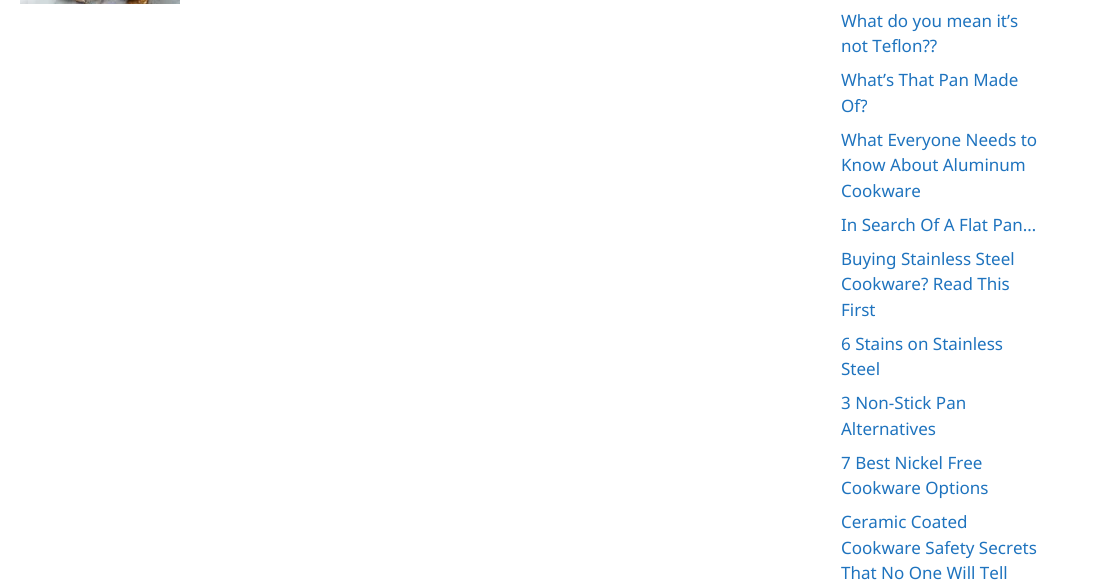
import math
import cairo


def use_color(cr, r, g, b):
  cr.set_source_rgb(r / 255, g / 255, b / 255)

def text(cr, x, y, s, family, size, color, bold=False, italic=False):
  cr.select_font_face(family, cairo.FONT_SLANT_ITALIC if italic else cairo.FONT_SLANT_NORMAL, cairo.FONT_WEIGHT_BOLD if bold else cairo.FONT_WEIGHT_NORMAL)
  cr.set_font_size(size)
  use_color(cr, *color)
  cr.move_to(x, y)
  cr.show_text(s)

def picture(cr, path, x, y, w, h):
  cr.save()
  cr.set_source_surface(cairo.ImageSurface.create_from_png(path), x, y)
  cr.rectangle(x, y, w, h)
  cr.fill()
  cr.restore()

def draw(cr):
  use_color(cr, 255, 255, 255)
  cr.paint()
  picture(cr, "img_01.png", 20, 0, 160, 4)
  text(cr, 841, 27, "What do you mean it’s", "Noto Sans", 17, (30, 115, 190))
  text(cr, 841, 52, "not Teflon??", "Noto Sans", 17, (30, 115, 190))
  text(cr, 841, 86, "What’s That Pan Made", "Noto Sans", 17, (30, 115, 190))
  text(cr, 841, 112, "Of?", "Noto Sans", 17, (30, 115, 190))
  text(cr, 841, 146, "What Everyone Needs to", "Noto Sans", 17, (30, 115, 190))
  text(cr, 841, 171, "Know About Aluminum", "Noto Sans", 17, (30, 115, 190))
  text(cr, 841, 197, "Cookware", "Noto Sans", 17, (30, 115, 190))
  text(cr, 841, 231, "In Search Of A Flat Pan…", "Noto Sans", 17, (30, 115, 190))
  text(cr, 841, 265, "Buying Stainless Steel", "Noto Sans", 17, (30, 115, 190))
  text(cr, 841, 290, "Cookware? Read This", "Noto Sans", 17, (30, 115, 190))
  text(cr, 841, 316, "First", "Noto Sans", 17, (30, 115, 190))
  text(cr, 841, 350, "6 Stains on Stainless", "Noto Sans", 17, (30, 115, 190))
  text(cr, 841, 375, "Steel", "Noto Sans", 17, (30, 115, 190))
  text(cr, 841, 409, "3 Non-Stick Pan", "Noto Sans", 17, (30, 115, 190))
  text(cr, 841, 435, "Alternatives", "Noto Sans", 17, (30, 115, 190))
  text(cr, 841, 469, "7 Best Nickel Free", "Noto Sans", 17, (30, 115, 190))
  text(cr, 841, 494, "Cookware Options", "Noto Sans", 17, (30, 115, 190))
  text(cr, 841, 528, "Ceramic Coated", "Noto Sans", 17, (30, 115, 190))
  text(cr, 841, 554, "Cookware Safety Secrets", "Noto Sans", 17, (30, 115, 190))
  text(cr, 841, 579, "That No One Will Tell", "Noto Sans", 17, (30, 115, 190))


surface = cairo.ImageSurface(cairo.FORMAT_RGB24, 1105, 585)
cr = cairo.Context(surface)
options = cairo.FontOptions()
options.set_hint_metrics(cairo.HINT_METRICS_OFF)
options.set_hint_style(cairo.HINT_STYLE_NONE)
cr.set_font_options(options)
cr.set_miter_limit(4)
draw(cr)
surface.write_to_png("out.png")
